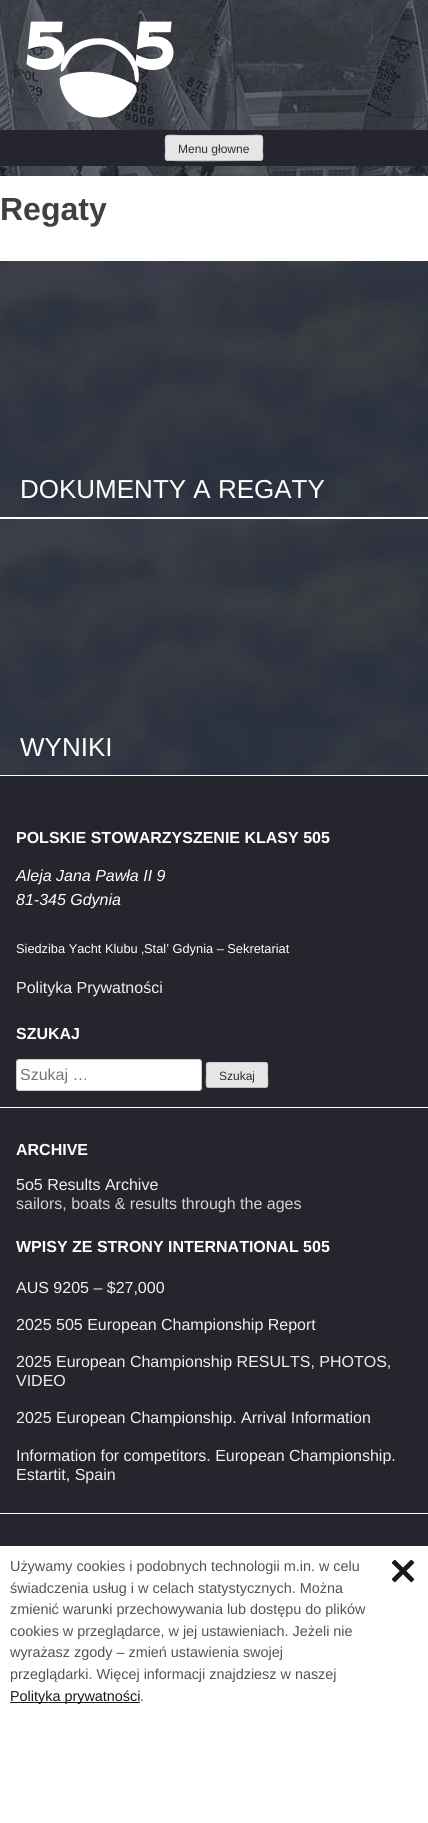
import math
import cairo


def use_color(cr, r, g, b):
  cr.set_source_rgb(r / 255, g / 255, b / 255)

def text(cr, x, y, s, family, size, color, bold=False, italic=False):
  cr.select_font_face(family, cairo.FONT_SLANT_ITALIC if italic else cairo.FONT_SLANT_NORMAL, cairo.FONT_WEIGHT_BOLD if bold else cairo.FONT_WEIGHT_NORMAL)
  cr.set_font_size(size)
  use_color(cr, *color)
  cr.move_to(x, y)
  cr.show_text(s)

def box(cr, x, y, w, h, *color):
  use_color(cr, *color)
  cr.rectangle(x, y, w, h)
  cr.fill()

def round_rect(cr, x, y, w, h, r):
  cr.new_sub_path()
  for i, (u, v) in enumerate([(x + w - r, y + h - r), (x + r, y + h - r), (x + r, y + r), (x + w - r, y + r)]):
    cr.arc(u, v, r, i * math.pi / 2, (i + 1) * math.pi / 2)
  cr.close_path()

def picture(cr, path, x, y, w, h):
  cr.save()
  cr.set_source_surface(cairo.ImageSurface.create_from_png(path), x, y)
  cr.rectangle(x, y, w, h)
  cr.fill()
  cr.restore()

def draw(cr):
  use_color(cr, 255, 255, 255)
  cr.paint()
  picture(cr, "img_01.png", 0, 0, 428, 176)
  picture(cr, "img_02.png", 26, 21, 148, 97)
  box(cr, 0, 130, 428, 36, 37, 38, 45)
  use_color(cr, 230, 230, 230)
  round_rect(cr, 165, 135, 98, 26, 3)
  cr.fill()
  cr.new_path()
  cr.move_to(262, 160)
  cr.line_to(260, 160.5)
  cr.line_to(244.5, 160.5)
  cr.curve_to(236.5, 160.5, 168.5, 161.5, 166.5, 160)
  cr.line_to(166, 160)
  use_color(cr, 187, 187, 187)
  cr.set_line_width(1)
  cr.stroke()
  cr.new_path()
  cr.move_to(166, 160)
  cr.curve_to(164.5, 158, 165.5, 153.5, 165.5, 151.5)
  cr.curve_to(165.5, 131.5, 162, 135.5, 183.5, 135.5)
  cr.line_to(244.5, 135.5)
  cr.curve_to(266, 135.5, 262.5, 131.5, 262.5, 151.5)
  cr.curve_to(262.5, 153.5, 263.5, 158, 262, 160)
  use_color(cr, 204, 204, 204)
  cr.stroke()
  picture(cr, "img_03.png", 0, 261, 428, 256)
  picture(cr, "img_03.png", 0, 519, 428, 256)
  box(cr, 0, 776, 428, 770, 37, 38, 45)
  box(cr, 0, 1107, 428, 1, 255, 255, 255)
  round_rect(cr, 16.5, 1059.5, 185, 31, 2.5)
  cr.fill_preserve()
  use_color(cr, 204, 204, 204)
  cr.stroke()
  use_color(cr, 230, 230, 230)
  round_rect(cr, 206, 1062, 62, 26, 3)
  cr.fill()
  cr.new_path()
  cr.move_to(267, 1087)
  cr.line_to(265, 1087.5)
  cr.line_to(209, 1087.5)
  cr.line_to(207, 1087)
  use_color(cr, 187, 187, 187)
  cr.stroke()
  cr.new_path()
  cr.move_to(207, 1087)
  cr.curve_to(205.5, 1085, 206.5, 1077.5, 206.5, 1075)
  cr.curve_to(206.5, 1060.5, 204, 1062.5, 218.5, 1062.5)
  cr.line_to(255.5, 1062.5)
  cr.curve_to(270, 1062.5, 267.5, 1060.5, 267.5, 1075)
  cr.curve_to(267.5, 1077.5, 268.5, 1085, 267, 1087)
  use_color(cr, 204, 204, 204)
  cr.stroke()
  box(cr, 0, 1513, 428, 1, 255, 255, 255)
  box(cr, 10, 1702, 130, 1, 26, 26, 26)
  picture(cr, "img_04.png", 391, 1559, 24, 24)
  text(cr, 178, 153, "Menu głowne", "Liberation Sans", 12, (46, 46, 46))
  text(cr, 0, 220, "Regaty", "Liberation Sans", 32, (64, 64, 64), bold=True)
  text(cr, 20, 498, "DOKUMENTY A REGATY", "Liberation Sans", 26, (255, 255, 255))
  text(cr, 20, 756, "WYNIKI", "Liberation Sans", 26, (255, 255, 255))
  text(cr, 16, 843, "POLSKIE STOWARZYSZENIE KLASY 505", "Liberation Sans", 16, (255, 255, 255), bold=True)
  text(cr, 16, 881, "Aleja Jana Pawła II 9", "Liberation Sans", 16, (255, 255, 255), italic=True)
  text(cr, 16, 905, "81-345 Gdynia", "Liberation Sans", 16, (255, 255, 255), italic=True)
  text(cr, 16, 953, "Siedziba Yacht Klubu ‚Stal’ Gdynia – Sekretariat", "Liberation Sans", 12.8, (255, 255, 255))
  text(cr, 16, 993, "Polityka Prywatności", "Liberation Sans", 16, (240, 240, 240))
  text(cr, 16, 1039, "SZUKAJ", "Liberation Sans", 16, (255, 255, 255), bold=True)
  text(cr, 20, 1080, "Szukaj …", "Liberation Sans", 16, (117, 117, 117))
  text(cr, 219, 1080, "Szukaj", "Liberation Sans", 12, (46, 46, 46))
  text(cr, 16, 1155, "ARCHIVE", "Liberation Sans", 16, (255, 255, 255), bold=True)
  text(cr, 16, 1190, "5o5 Results Archive", "Liberation Sans", 16, (240, 240, 240))
  text(cr, 16, 1209, "sailors, boats & results through the ages", "Liberation Sans", 16, (211, 212, 213))
  text(cr, 16, 1252, "WPISY ZE STRONY INTERNATIONAL 505", "Liberation Sans", 16, (255, 255, 255), bold=True)
  text(cr, 16, 1293, "AUS 9205 – $27,000", "Liberation Sans", 16, (240, 240, 240))
  text(cr, 16, 1330, "2025 505 European Championship Report", "Liberation Sans", 16, (240, 240, 240))
  text(cr, 16, 1367, "2025 European Championship RESULTS, PHOTOS,", "Liberation Sans", 16, (240, 240, 240))
  text(cr, 16, 1386, "VIDEO", "Liberation Sans", 16, (240, 240, 240))
  text(cr, 16, 1423, "2025 European Championship. Arrival Information", "Liberation Sans", 16, (240, 240, 240))
  text(cr, 16, 1461, "Information for competitors. European Championship.", "Liberation Sans", 16, (240, 240, 240))
  text(cr, 16, 1480, "Estartit, Spain", "Liberation Sans", 16, (240, 240, 240))
  text(cr, 10, 1571, "Używamy cookies i podobnych technologii m.in. w celu", "Liberation Sans", 14.4, (83, 83, 83))
  text(cr, 10, 1593, "świadczenia usług i w celach statystycznych. Można", "Liberation Sans", 14.4, (83, 83, 83))
  text(cr, 10, 1614, "zmienić warunki przechowywania lub dostępu do plików", "Liberation Sans", 14.4, (83, 83, 83))
  text(cr, 10, 1636, "cookies w przeglądarce, w jej ustawieniach. Jeżeli nie", "Liberation Sans", 14.4, (83, 83, 83))
  text(cr, 10, 1657, "wyrażasz zgody – zmień ustawienia swojej", "Liberation Sans", 14.4, (83, 83, 83))
  text(cr, 10, 1679, "przeglądarki. Więcej informacji znajdziesz w naszej", "Liberation Sans", 14.4, (83, 83, 83))
  text(cr, 10, 1701, "Polityka prywatności", "Liberation Sans", 14.4, (26, 26, 26))
  text(cr, 140, 1701, ".", "Liberation Sans", 14.4, (83, 83, 83))


surface = cairo.ImageSurface(cairo.FORMAT_RGB24, 428, 1823)
cr = cairo.Context(surface)
options = cairo.FontOptions()
options.set_hint_metrics(cairo.HINT_METRICS_OFF)
options.set_hint_style(cairo.HINT_STYLE_NONE)
cr.set_font_options(options)
cr.set_miter_limit(4)
draw(cr)
surface.write_to_png("out.png")
